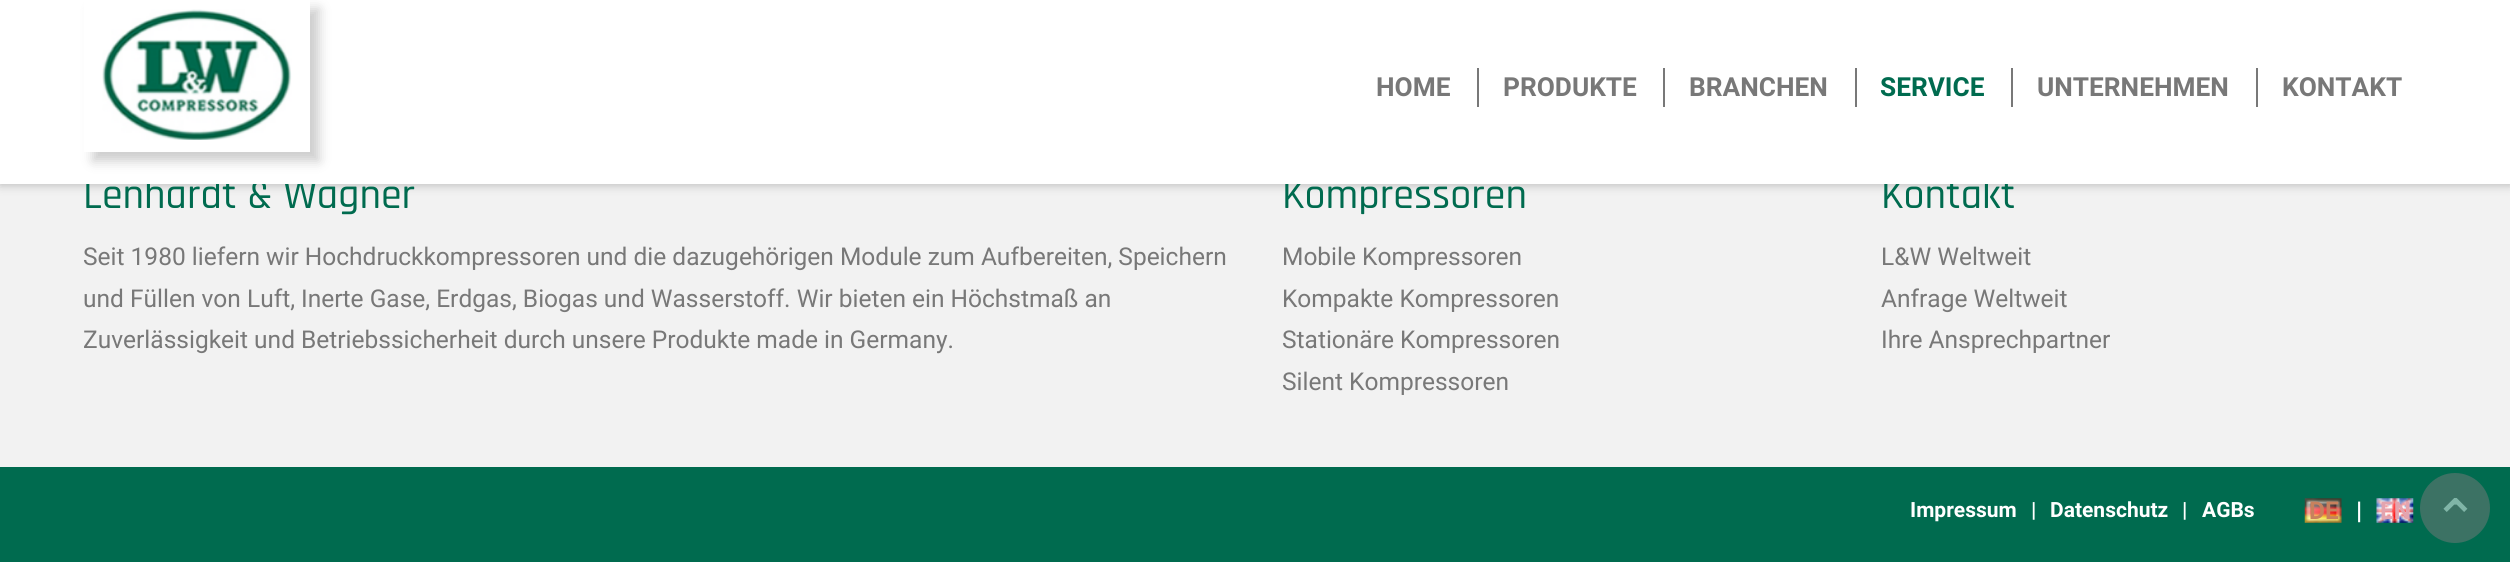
import math
import cairo


def use_color(cr, r, g, b):
  cr.set_source_rgb(r / 255, g / 255, b / 255)

def text(cr, x, y, s, family, size, color, bold=False, italic=False):
  cr.select_font_face(family, cairo.FONT_SLANT_ITALIC if italic else cairo.FONT_SLANT_NORMAL, cairo.FONT_WEIGHT_BOLD if bold else cairo.FONT_WEIGHT_NORMAL)
  cr.set_font_size(size)
  use_color(cr, *color)
  cr.move_to(x, y)
  cr.show_text(s)

def box(cr, x, y, w, h, *color):
  use_color(cr, *color)
  cr.rectangle(x, y, w, h)
  cr.fill()

def round_rect(cr, x, y, w, h, r):
  cr.new_sub_path()
  for i, (u, v) in enumerate([(x + w - r, y + h - r), (x + r, y + h - r), (x + r, y + r), (x + w - r, y + r)]):
    cr.arc(u, v, r, i * math.pi / 2, (i + 1) * math.pi / 2)
  cr.close_path()

def shadow(cr, x, y, w, h, r, blur, alpha):
  cr.push_group_with_content(cairo.CONTENT_ALPHA)
  cr.set_operator(cairo.OPERATOR_SOURCE)
  for i in range(15, -16, -2):
    e = blur * i / 6
    if min(w, h) + 2 * e > 0:
      cr.set_source_rgba(0, 0, 0, alpha * math.erfc((i - 1) / 8.5) / 2)
      round_rect(cr, x - e, y - e, w + 2 * e, h + 2 * e, max(0, min(r + e + blur * .6, min(w, h) / 2 + e)))
      cr.fill()
  cr.mask(cr.pop_group())

def picture(cr, path, x, y, w, h):
  cr.save()
  cr.set_source_surface(cairo.ImageSurface.create_from_png(path), x, y)
  cr.rectangle(x, y, w, h)
  cr.fill()
  cr.restore()

def draw(cr):
  use_color(cr, 242, 242, 242)
  cr.paint()
  use_color(cr, 0, 0, 0)
  shadow(cr, 0, 2, 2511, 184, 0, 4.5, 0.2)
  box(cr, 0, 467, 2510, 95, 0, 107, 79)
  picture(cr, "img_02.png", 2304, 498, 38, 25)
  picture(cr, "img_03.png", 2376, 498, 38, 25)
  use_color(cr, 60, 114, 100)
  cr.arc(2455, 508, 35, 0, 2 * math.pi)
  cr.fill()
  text(cr, 83, 208, "Lenhardt & Wagner", "Rajdhani Medium", 42, (0, 107, 79))
  text(cr, 83, 265, "Seit 1980 liefern wir Hochdruckkompressoren und die dazugehörigen Module zum Aufbereiten, Speichern", "Roboto", 24.5, (120, 120, 120))
  text(cr, 83, 307, "und Füllen von Luft, Inerte Gase, Erdgas, Biogas und Wasserstoff. Wir bieten ein Höchstmaß an", "Roboto", 24.5, (120, 120, 120))
  text(cr, 83, 348, "Zuverlässigkeit und Betriebssicherheit durch unsere Produkte made in Germany.", "Roboto", 24.5, (120, 120, 120))
  text(cr, 1282, 208, "Kompressoren", "Rajdhani Medium", 42, (0, 107, 79))
  text(cr, 1282, 265, "Mobile Kompressoren", "Roboto", 24.5, (120, 120, 120))
  text(cr, 1282, 307, "Kompakte Kompressoren", "Roboto", 24.5, (120, 120, 120))
  text(cr, 1282, 348, "Stationäre Kompressoren", "Roboto", 24.5, (120, 120, 120))
  text(cr, 1282, 390, "Silent Kompressoren", "Roboto", 24.5, (120, 120, 120))
  text(cr, 1881, 208, "Kontakt", "Rajdhani Medium", 42, (0, 107, 79))
  box(cr, 0, 0, 2510, 184, 255, 255, 255)
  box(cr, 2256, 68, 2, 39, 120, 120, 120)
  box(cr, 2011, 68, 2, 39, 120, 120, 120)
  box(cr, 1855, 68, 2, 39, 120, 120, 120)
  box(cr, 1663, 68, 2, 39, 120, 120, 120)
  box(cr, 1477, 68, 2, 39, 120, 120, 120)
  text(cr, 2282, 96, "KONTAKT", "Roboto", 26.25, (120, 120, 120), bold=True)
  text(cr, 2037, 96, "UNTERNEHMEN", "Roboto", 26.25, (120, 120, 120), bold=True)
  text(cr, 1880, 96, "SERVICE", "Roboto", 26.25, (0, 107, 79), bold=True)
  text(cr, 1689, 96, "BRANCHEN", "Roboto", 26.25, (120, 120, 120), bold=True)
  text(cr, 1503, 96, "PRODUKTE", "Roboto", 26.25, (120, 120, 120), bold=True)
  text(cr, 1376, 96, "HOME", "Roboto", 26.25, (120, 120, 120), bold=True)
  use_color(cr, 0, 0, 0)
  shadow(cr, 93, 9, 226, 152, 0, 6, 0.2)
  box(cr, 84, 0, 226, 152, 255, 255, 255)
  picture(cr, "img_01.png", 102, 9, 190, 131)
  text(cr, 1881, 265, "L&W Weltweit", "Roboto", 24.5, (120, 120, 120))
  text(cr, 1881, 307, "Anfrage Weltweit", "Roboto", 24.5, (120, 120, 120))
  text(cr, 1881, 348, "Ihre Ansprechpartner", "Roboto", 24.5, (120, 120, 120))
  text(cr, 1910, 517, "Impressum", "Roboto", 21, (255, 255, 255), bold=True)
  text(cr, 2031, 517, "|", "Roboto", 21, (255, 255, 255), bold=True)
  text(cr, 2050, 517, "Datenschutz", "Roboto", 21, (255, 255, 255), bold=True)
  text(cr, 2182, 517, "|", "Roboto", 21, (255, 255, 255), bold=True)
  text(cr, 2202, 517, "AGBs", "Roboto", 21, (255, 255, 255), bold=True)
  text(cr, 2309, 519, "DE", "Roboto", 24.5, (200, 129, 93), bold=True)
  text(cr, 2356, 519, "|", "Roboto", 24.5, (255, 255, 255), bold=True)
  text(cr, 2380, 519, "EN", "Roboto", 24.5, (227, 164, 175), bold=True)
  text(cr, 2432, 539, "⌃", "DejaVu Sans", 56, (128, 181, 167))


surface = cairo.ImageSurface(cairo.FORMAT_RGB24, 2510, 562)
cr = cairo.Context(surface)
options = cairo.FontOptions()
options.set_hint_metrics(cairo.HINT_METRICS_OFF)
options.set_hint_style(cairo.HINT_STYLE_NONE)
cr.set_font_options(options)
cr.set_miter_limit(4)
draw(cr)
surface.write_to_png("out.png")
